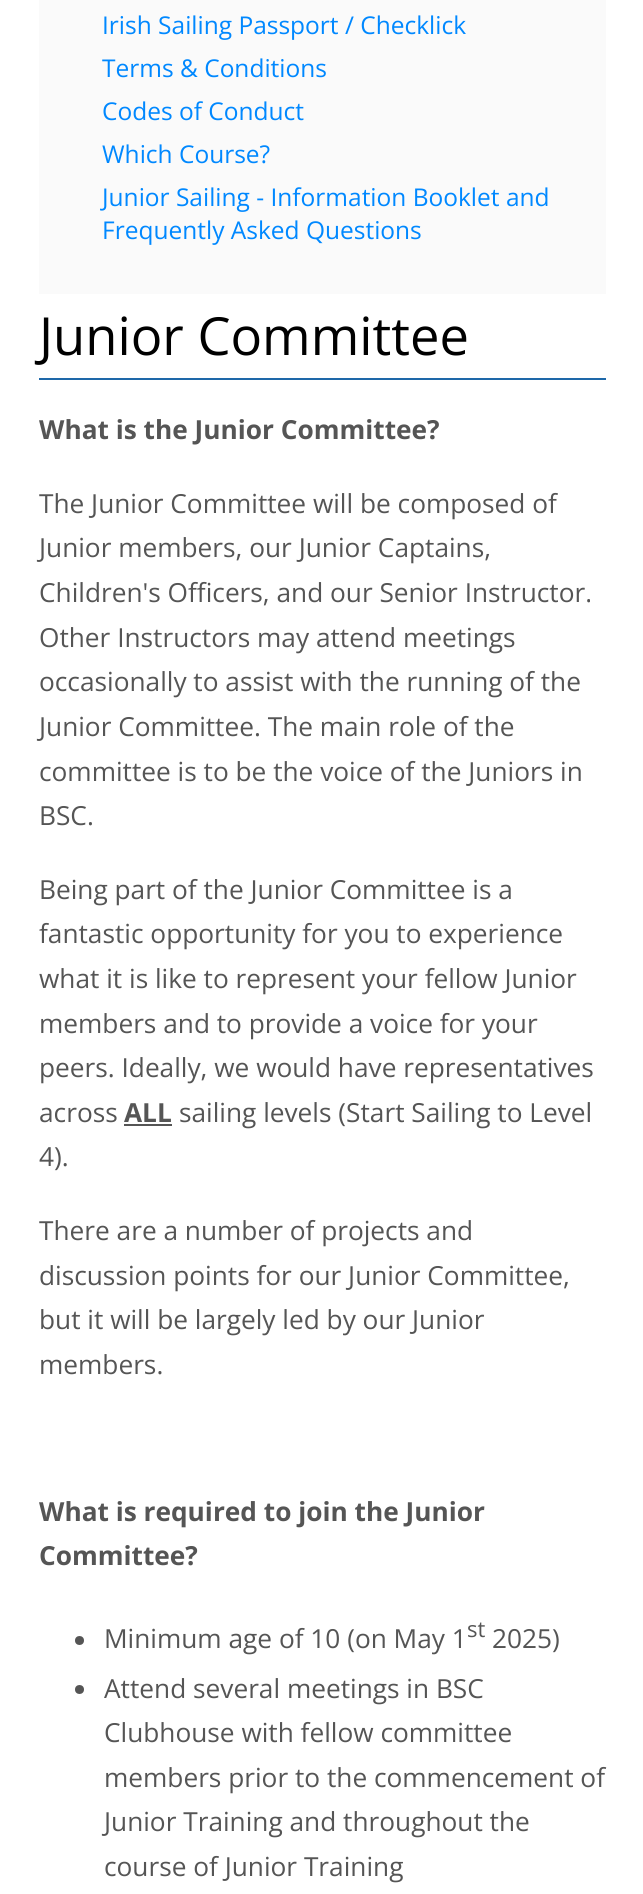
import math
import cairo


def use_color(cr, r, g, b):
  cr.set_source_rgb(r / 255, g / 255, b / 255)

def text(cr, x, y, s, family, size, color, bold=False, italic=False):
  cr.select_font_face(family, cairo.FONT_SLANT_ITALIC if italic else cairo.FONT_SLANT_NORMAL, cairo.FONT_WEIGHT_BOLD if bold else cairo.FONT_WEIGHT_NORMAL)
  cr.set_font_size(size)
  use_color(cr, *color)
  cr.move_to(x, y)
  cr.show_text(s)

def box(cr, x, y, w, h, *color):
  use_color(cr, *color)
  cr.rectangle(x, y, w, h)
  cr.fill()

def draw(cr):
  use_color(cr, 255, 255, 255)
  cr.paint()
  box(cr, 39, 0, 567, 294, 250, 250, 250)
  box(cr, 39, 378, 567, 2, 30, 104, 169)
  box(cr, 124, 1124, 48, 2, 85, 85, 85)
  cr.arc(79.5, 1640.5, 4.5, 0, 2 * math.pi)
  cr.fill()
  cr.arc(79.5, 1689.5, 4.5, 0, 2 * math.pi)
  cr.fill()
  text(cr, 102, 34, "Irish Sailing Passport / Checklick", "Open Sans", 24.5, (0, 136, 255))
  text(cr, 102, 77, "Terms & Conditions", "Open Sans", 24.5, (0, 136, 255))
  text(cr, 102, 120, "Codes of Conduct", "Open Sans", 24.5, (0, 136, 255))
  text(cr, 102, 163, "Which Course?", "Open Sans", 24.5, (0, 136, 255))
  text(cr, 102, 206, "Junior Sailing - Information Booklet and", "Open Sans", 24.5, (0, 136, 255))
  text(cr, 102, 239, "Frequently Asked Questions", "Open Sans", 24.5, (0, 136, 255))
  text(cr, 39, 355, "Junior Committee", "Open Sans", 52.5, (0, 0, 0))
  text(cr, 39, 439, "What is the Junior Committee?", "Open Sans", 26.25, (85, 85, 85), bold=True)
  text(cr, 39, 513, "The Junior Committee will be composed of", "Open Sans", 26.25, (85, 85, 85))
  text(cr, 39, 557, "Junior members, our Junior Captains,", "Open Sans", 26.25, (85, 85, 85))
  text(cr, 39, 602, "Children's Officers, and our Senior Instructor.", "Open Sans", 26.25, (85, 85, 85))
  text(cr, 39, 647, "Other Instructors may attend meetings", "Open Sans", 26.25, (85, 85, 85))
  text(cr, 39, 691, "occasionally to assist with the running of the", "Open Sans", 26.25, (85, 85, 85))
  text(cr, 39, 736, "Junior Committee. The main role of the", "Open Sans", 26.25, (85, 85, 85))
  text(cr, 39, 781, "committee is to be the voice of the Juniors in", "Open Sans", 26.25, (85, 85, 85))
  text(cr, 39, 825, "BSC.", "Open Sans", 26.25, (85, 85, 85))
  text(cr, 39, 899, "Being part of the Junior Committee is a", "Open Sans", 26.25, (85, 85, 85))
  text(cr, 39, 943, "fantastic opportunity for you to experience", "Open Sans", 26.25, (85, 85, 85))
  text(cr, 39, 988, "what it is like to represent your fellow Junior", "Open Sans", 26.25, (85, 85, 85))
  text(cr, 39, 1033, "members and to provide a voice for your", "Open Sans", 26.25, (85, 85, 85))
  text(cr, 39, 1077, "peers. Ideally, we would have representatives", "Open Sans", 26.25, (85, 85, 85))
  text(cr, 39, 1122, "across", "Open Sans", 26.25, (85, 85, 85))
  text(cr, 124, 1122, "ALL", "Open Sans", 26.25, (85, 85, 85), bold=True)
  text(cr, 179, 1122, "sailing levels (Start Sailing to Level", "Open Sans", 26.25, (85, 85, 85))
  text(cr, 39, 1166, "4).", "Open Sans", 26.25, (85, 85, 85))
  text(cr, 39, 1240, "There are a number of projects and", "Open Sans", 26.25, (85, 85, 85))
  text(cr, 39, 1285, "discussion points for our Junior Committee,", "Open Sans", 26.25, (85, 85, 85))
  text(cr, 39, 1329, "but it will be largely led by our Junior", "Open Sans", 26.25, (85, 85, 85))
  text(cr, 39, 1374, "members.", "Open Sans", 26.25, (85, 85, 85))
  text(cr, 39, 1521, "What is required to join the Junior", "Open Sans", 26.25, (85, 85, 85), bold=True)
  text(cr, 39, 1565, "Committee?", "Open Sans", 26.25, (85, 85, 85), bold=True)
  text(cr, 104, 1648, "Minimum age of 10 (on May 1", "Open Sans", 26.25, (85, 85, 85))
  text(cr, 467, 1637, "st", "Open Sans", 22, (85, 85, 85))
  text(cr, 492, 1648, "2025)", "Open Sans", 26.25, (85, 85, 85))
  text(cr, 104, 1698, "Attend several meetings in BSC", "Open Sans", 26.25, (85, 85, 85))
  text(cr, 104, 1742, "Clubhouse with fellow committee", "Open Sans", 26.25, (85, 85, 85))
  text(cr, 104, 1787, "members prior to the commencement of", "Open Sans", 26.25, (85, 85, 85))
  text(cr, 104, 1831, "Junior Training and throughout the", "Open Sans", 26.25, (85, 85, 85))
  text(cr, 104, 1876, "course of Junior Training", "Open Sans", 26.25, (85, 85, 85))


surface = cairo.ImageSurface(cairo.FORMAT_RGB24, 643, 1894)
cr = cairo.Context(surface)
options = cairo.FontOptions()
options.set_hint_metrics(cairo.HINT_METRICS_OFF)
options.set_hint_style(cairo.HINT_STYLE_NONE)
cr.set_font_options(options)
cr.set_miter_limit(4)
draw(cr)
surface.write_to_png("out.png")
